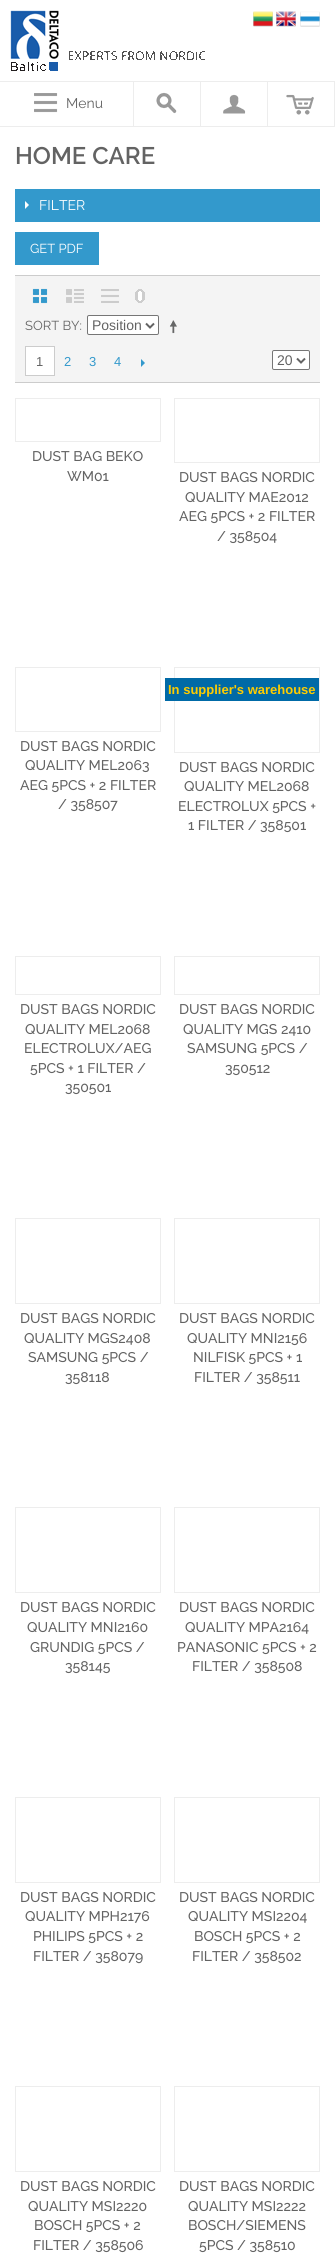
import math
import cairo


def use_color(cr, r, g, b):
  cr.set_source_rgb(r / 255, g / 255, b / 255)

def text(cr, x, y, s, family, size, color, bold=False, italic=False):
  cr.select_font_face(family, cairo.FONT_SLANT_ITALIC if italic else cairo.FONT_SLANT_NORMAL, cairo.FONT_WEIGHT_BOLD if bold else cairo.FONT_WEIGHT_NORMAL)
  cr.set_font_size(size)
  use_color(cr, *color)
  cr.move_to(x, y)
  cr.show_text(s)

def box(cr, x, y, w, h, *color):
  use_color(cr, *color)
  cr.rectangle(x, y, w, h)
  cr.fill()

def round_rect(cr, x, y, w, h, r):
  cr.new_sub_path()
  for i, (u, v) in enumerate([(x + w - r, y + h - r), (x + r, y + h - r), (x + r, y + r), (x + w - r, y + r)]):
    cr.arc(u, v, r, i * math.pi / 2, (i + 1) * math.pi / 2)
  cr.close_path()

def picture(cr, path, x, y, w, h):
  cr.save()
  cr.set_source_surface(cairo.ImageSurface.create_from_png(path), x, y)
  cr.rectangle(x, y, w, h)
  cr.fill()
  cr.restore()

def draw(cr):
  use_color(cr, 255, 255, 255)
  cr.paint()
  picture(cr, "img_01.png", 10, 10, 195, 61)
  picture(cr, "img_02.png", 253, 11, 20, 16)
  picture(cr, "img_03.png", 276, 11, 20, 16)
  picture(cr, "img_04.png", 300, 11, 20, 16)
  box(cr, 0, 81, 335, 1, 237, 237, 237)
  box(cr, 0, 126, 335, 1, 237, 237, 237)
  box(cr, 133, 82, 1, 44, 237, 237, 237)
  picture(cr, "img_05.png", 34, 93, 24, 20)
  box(cr, 200, 82, 1, 44, 237, 237, 237)
  picture(cr, "img_06.png", 156, 92, 21, 22)
  box(cr, 267, 82, 1, 44, 237, 237, 237)
  picture(cr, "img_07.png", 223, 94, 23, 20)
  box(cr, 334, 82, 1, 44, 237, 237, 237)
  picture(cr, "img_08.png", 286, 94, 28, 21)
  box(cr, 15, 189, 305, 33, 51, 153, 204)
  use_color(cr, 255, 255, 255)
  cr.new_path()
  cr.move_to(25, 209)
  cr.line_to(25, 201)
  cr.line_to(29, 205)
  cr.close_path()
  cr.fill()
  box(cr, 15, 232, 84, 33, 51, 153, 204)
  box(cr, 15, 276, 305, 106, 244, 244, 244)
  box(cr, 15, 275, 305, 1, 204, 204, 204)
  box(cr, 15, 382, 305, 1, 204, 204, 204)
  picture(cr, "img_09.png", 32, 288, 16, 16)
  picture(cr, "img_10.png", 66, 289, 18, 14)
  picture(cr, "img_11.png", 101, 289, 18, 14)
  picture(cr, "img_12.png", 135, 289, 10, 14)
  use_color(cr, 255, 255, 255)
  round_rect(cr, 87.5, 315.5, 71, 19, 1.5)
  cr.fill_preserve()
  use_color(cr, 118, 118, 118)
  cr.set_line_width(1)
  cr.stroke()
  cr.new_path()
  cr.move_to(146, 323.5)
  cr.line_to(150, 327.5)
  cr.line_to(154, 323.5)
  use_color(cr, 99, 99, 99)
  cr.set_line_width(2)
  cr.stroke()
  picture(cr, "img_13.png", 169, 320, 8, 14)
  use_color(cr, 255, 255, 255)
  cr.rectangle(25.5, 346.5, 29, 29)
  cr.fill_preserve()
  use_color(cr, 204, 204, 204)
  cr.set_line_width(1)
  cr.stroke()
  use_color(cr, 51, 153, 204)
  cr.new_path()
  cr.move_to(141, 367)
  cr.line_to(141, 359)
  cr.line_to(145, 363)
  cr.close_path()
  cr.fill()
  use_color(cr, 255, 255, 255)
  round_rect(cr, 272.5, 350.5, 37, 19, 1.5)
  cr.fill_preserve()
  use_color(cr, 118, 118, 118)
  cr.stroke()
  cr.new_path()
  cr.move_to(297, 358.5)
  cr.line_to(301, 362.5)
  cr.line_to(305, 358.5)
  use_color(cr, 99, 99, 99)
  cr.set_line_width(2)
  cr.stroke()
  cr.rectangle(15.5, 398.5, 145, 43)
  use_color(cr, 237, 237, 237)
  cr.set_line_width(1)
  cr.stroke()
  cr.rectangle(174.5, 398.5, 145, 64)
  cr.stroke()
  cr.rectangle(15.5, 667.5, 145, 64)
  cr.stroke()
  cr.rectangle(174.5, 667.5, 145, 85)
  cr.stroke()
  box(cr, 165, 678, 154, 23, 0, 106, 167)
  cr.rectangle(15.5, 956.5, 145, 38)
  use_color(cr, 237, 237, 237)
  cr.stroke()
  cr.rectangle(174.5, 956.5, 145, 38)
  cr.stroke()
  cr.rectangle(15.5, 1218.5, 145, 85)
  cr.stroke()
  cr.rectangle(174.5, 1218.5, 145, 85)
  cr.stroke()
  cr.rectangle(15.5, 1507.5, 145, 85)
  cr.stroke()
  cr.rectangle(174.5, 1507.5, 145, 85)
  cr.stroke()
  cr.rectangle(15.5, 1797.5, 145, 85)
  cr.stroke()
  cr.rectangle(174.5, 1797.5, 145, 85)
  cr.stroke()
  cr.rectangle(15.5, 2086.5, 145, 85)
  cr.stroke()
  cr.rectangle(174.5, 2086.5, 145, 85)
  cr.stroke()
  text(cr, 66, 108, "Menu", "Raleway", 14, (99, 99, 99))
  text(cr, 15, 164, "HOME CARE", "Raleway SemiBold", 24, (99, 99, 99))
  text(cr, 39, 210, "FILTER", "Raleway", 14, (255, 255, 255))
  text(cr, 30, 253, "GET PDF", "Raleway", 13, (255, 255, 255))
  text(cr, 25, 330, "SORT BY:", "Raleway", 13, (99, 99, 99))
  text(cr, 92, 330, "Position", "Liberation Sans", 14, (99, 99, 99))
  text(cr, 36, 366, "1", "Liberation Sans", 13, (99, 99, 99))
  text(cr, 64, 366, "2", "Liberation Sans", 13, (51, 153, 204))
  text(cr, 89, 366, "3", "Liberation Sans", 13, (51, 153, 204))
  text(cr, 114, 366, "4", "Liberation Sans", 13, (51, 153, 204))
  text(cr, 277, 365, "20", "Liberation Sans", 14, (99, 99, 99))
  text(cr, 32, 461, "DUST BAG BEKO", "Raleway Medium", 14, (99, 99, 99))
  text(cr, 67, 481, "WM01", "Raleway Medium", 14, (99, 99, 99))
  text(cr, 179, 482, "DUST BAGS NORDIC", "Raleway Medium", 14, (99, 99, 99))
  text(cr, 185, 502, "QUALITY MAE2012", "Raleway Medium", 14, (99, 99, 99))
  text(cr, 179, 521, "AEG 5PCS + 2 FILTER", "Raleway Medium", 14, (99, 99, 99))
  text(cr, 217, 541, "/ 358504", "Raleway Medium", 14, (99, 99, 99))
  text(cr, 20, 751, "DUST BAGS NORDIC", "Raleway Medium", 14, (99, 99, 99))
  text(cr, 25, 770, "QUALITY MEL2063", "Raleway Medium", 14, (99, 99, 99))
  text(cr, 20, 790, "AEG 5PCS + 2 FILTER", "Raleway Medium", 14, (99, 99, 99))
  text(cr, 58, 809, "/ 358507", "Raleway Medium", 14, (99, 99, 99))
  text(cr, 168, 694, "In supplier's warehouse", "Liberation Sans", 13, (254, 204, 0), bold=True)
  text(cr, 179, 772, "DUST BAGS NORDIC", "Raleway Medium", 14, (99, 99, 99))
  text(cr, 184, 791, "QUALITY MEL2068", "Raleway Medium", 14, (99, 99, 99))
  text(cr, 178, 811, "ELECTROLUX 5PCS +", "Raleway Medium", 14, (99, 99, 99))
  text(cr, 188, 830, "1 FILTER / 358501", "Raleway Medium", 14, (99, 99, 99))
  text(cr, 20, 1014, "DUST BAGS NORDIC", "Raleway Medium", 14, (99, 99, 99))
  text(cr, 25, 1034, "QUALITY MEL2068", "Raleway Medium", 14, (99, 99, 99))
  text(cr, 24, 1053, "ELECTROLUX/AEG", "Raleway Medium", 14, (99, 99, 99))
  text(cr, 30, 1073, "5PCS + 1 FILTER /", "Raleway Medium", 14, (99, 99, 99))
  text(cr, 65, 1092, "350501", "Raleway Medium", 14, (99, 99, 99))
  text(cr, 179, 1014, "DUST BAGS NORDIC", "Raleway Medium", 14, (99, 99, 99))
  text(cr, 183, 1034, "QUALITY MGS 2410", "Raleway Medium", 14, (99, 99, 99))
  text(cr, 187, 1053, "SAMSUNG 5PCS /", "Raleway Medium", 14, (99, 99, 99))
  text(cr, 225, 1073, "350512", "Raleway Medium", 14, (99, 99, 99))
  text(cr, 20, 1323, "DUST BAGS NORDIC", "Raleway Medium", 14, (99, 99, 99))
  text(cr, 24, 1343, "QUALITY MGS2408", "Raleway Medium", 14, (99, 99, 99))
  text(cr, 28, 1362, "SAMSUNG 5PCS /", "Raleway Medium", 14, (99, 99, 99))
  text(cr, 65, 1382, "358118", "Raleway Medium", 14, (99, 99, 99))
  text(cr, 179, 1323, "DUST BAGS NORDIC", "Raleway Medium", 14, (99, 99, 99))
  text(cr, 187, 1343, "QUALITY MNI2156", "Raleway Medium", 14, (99, 99, 99))
  text(cr, 193, 1362, "NILFISK 5PCS + 1", "Raleway Medium", 14, (99, 99, 99))
  text(cr, 194, 1382, "FILTER / 358511", "Raleway Medium", 14, (99, 99, 99))
  text(cr, 20, 1612, "DUST BAGS NORDIC", "Raleway Medium", 14, (99, 99, 99))
  text(cr, 27, 1632, "QUALITY MNI2160", "Raleway Medium", 14, (99, 99, 99))
  text(cr, 30, 1652, "GRUNDIG 5PCS /", "Raleway Medium", 14, (99, 99, 99))
  text(cr, 65, 1671, "358145", "Raleway Medium", 14, (99, 99, 99))
  text(cr, 179, 1612, "DUST BAGS NORDIC", "Raleway Medium", 14, (99, 99, 99))
  text(cr, 185, 1632, "QUALITY MPA2164", "Raleway Medium", 14, (99, 99, 99))
  text(cr, 177, 1652, "PANASONIC 5PCS + 2", "Raleway Medium", 14, (99, 99, 99))
  text(cr, 192, 1671, "FILTER / 358508", "Raleway Medium", 14, (99, 99, 99))
  text(cr, 20, 1902, "DUST BAGS NORDIC", "Raleway Medium", 14, (99, 99, 99))
  text(cr, 25, 1921, "QUALITY MPH2176", "Raleway Medium", 14, (99, 99, 99))
  text(cr, 33, 1941, "PHILIPS 5PCS + 2", "Raleway Medium", 14, (99, 99, 99))
  text(cr, 33, 1961, "FILTER / 358079", "Raleway Medium", 14, (99, 99, 99))
  text(cr, 179, 1902, "DUST BAGS NORDIC", "Raleway Medium", 14, (99, 99, 99))
  text(cr, 188, 1921, "QUALITY MSI2204", "Raleway Medium", 14, (99, 99, 99))
  text(cr, 194, 1941, "BOSCH 5PCS + 2", "Raleway Medium", 14, (99, 99, 99))
  text(cr, 192, 1961, "FILTER / 358502", "Raleway Medium", 14, (99, 99, 99))
  text(cr, 20, 2191, "DUST BAGS NORDIC", "Raleway Medium", 14, (99, 99, 99))
  text(cr, 28, 2211, "QUALITY MSI2220", "Raleway Medium", 14, (99, 99, 99))
  text(cr, 34, 2230, "BOSCH 5PCS + 2", "Raleway Medium", 14, (99, 99, 99))
  text(cr, 33, 2250, "FILTER / 358506", "Raleway Medium", 14, (99, 99, 99))
  text(cr, 179, 2191, "DUST BAGS NORDIC", "Raleway Medium", 14, (99, 99, 99))
  text(cr, 188, 2211, "QUALITY MSI2222", "Raleway Medium", 14, (99, 99, 99))
  text(cr, 188, 2230, "BOSCH/SIEMENS", "Raleway Medium", 14, (99, 99, 99))
  text(cr, 199, 2250, "5PCS / 358510", "Raleway Medium", 14, (99, 99, 99))


surface = cairo.ImageSurface(cairo.FORMAT_RGB24, 335, 2266)
cr = cairo.Context(surface)
options = cairo.FontOptions()
options.set_hint_metrics(cairo.HINT_METRICS_OFF)
options.set_hint_style(cairo.HINT_STYLE_NONE)
cr.set_font_options(options)
cr.set_miter_limit(4)
draw(cr)
surface.write_to_png("out.png")
